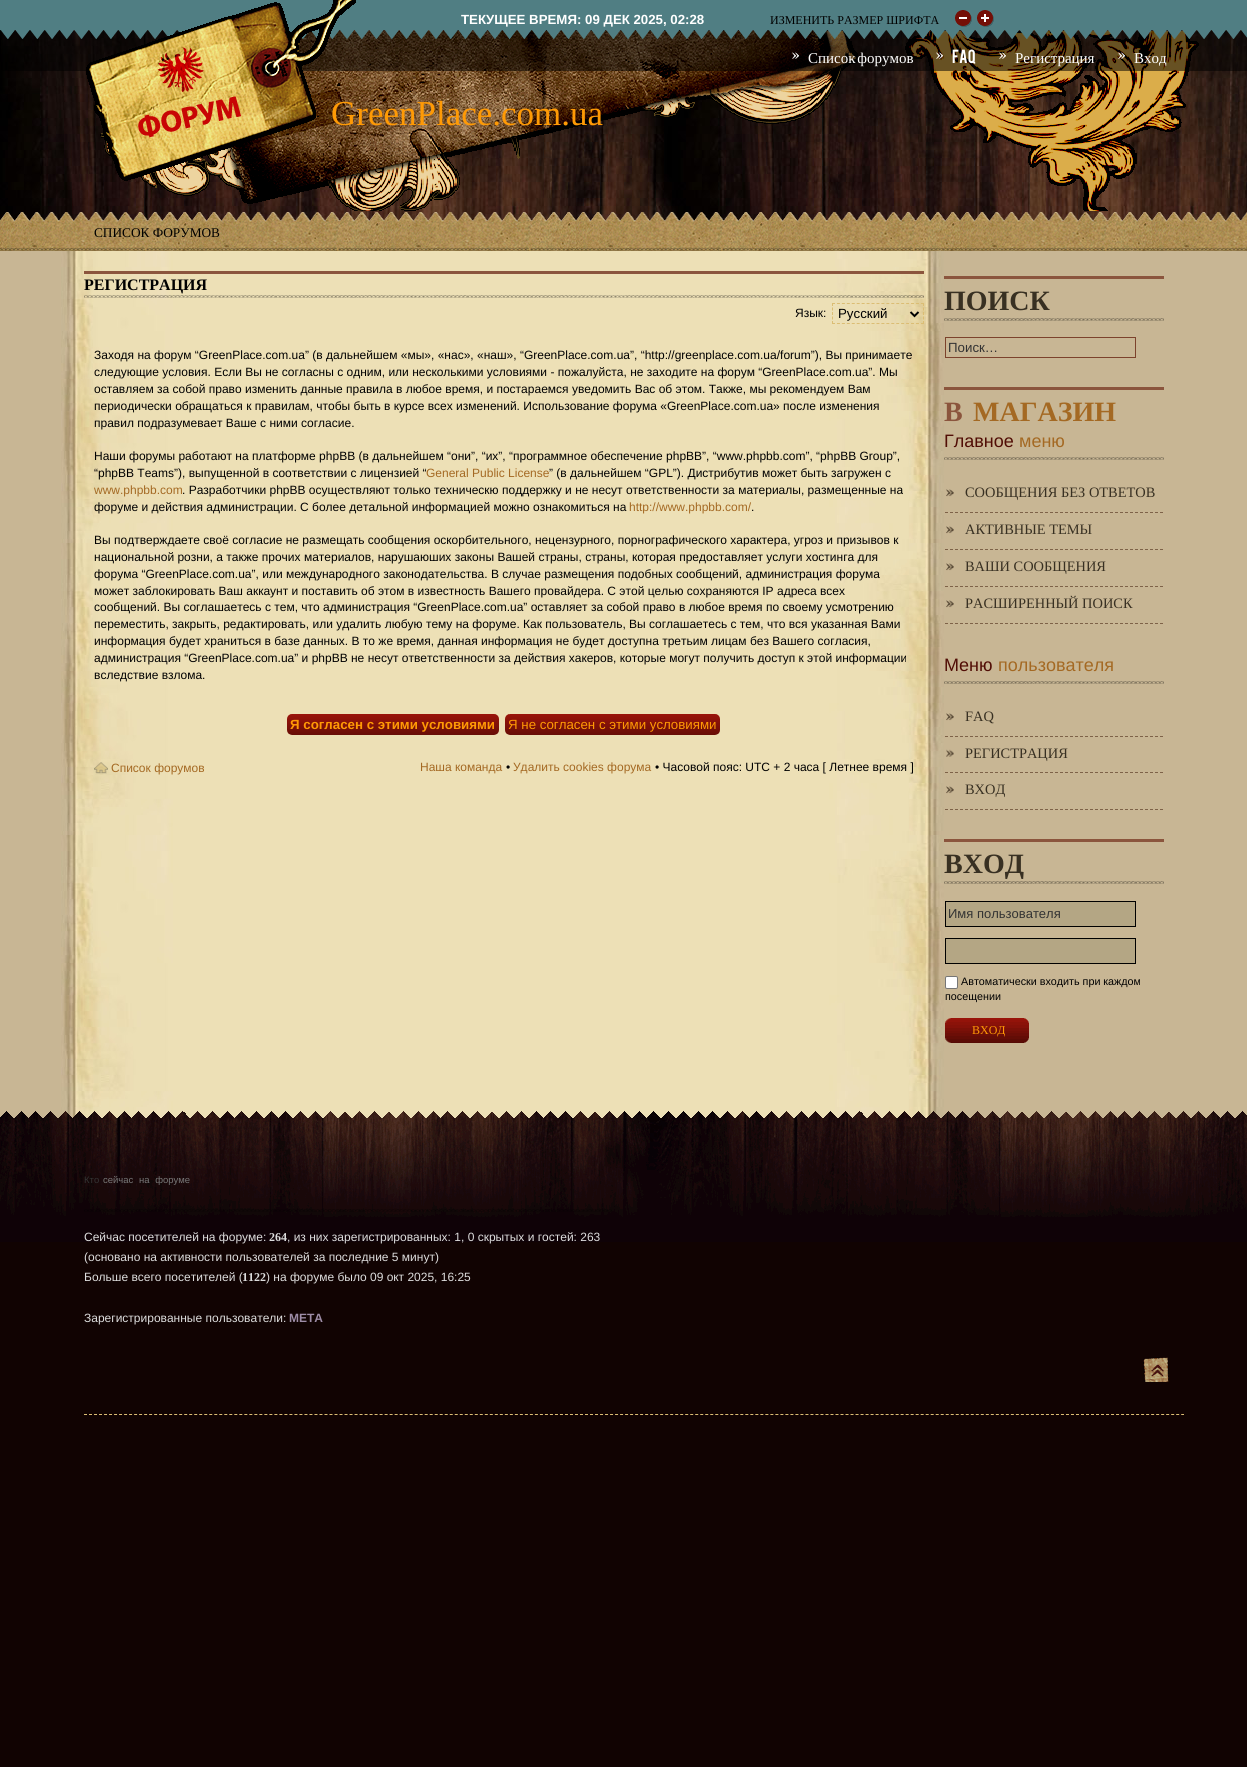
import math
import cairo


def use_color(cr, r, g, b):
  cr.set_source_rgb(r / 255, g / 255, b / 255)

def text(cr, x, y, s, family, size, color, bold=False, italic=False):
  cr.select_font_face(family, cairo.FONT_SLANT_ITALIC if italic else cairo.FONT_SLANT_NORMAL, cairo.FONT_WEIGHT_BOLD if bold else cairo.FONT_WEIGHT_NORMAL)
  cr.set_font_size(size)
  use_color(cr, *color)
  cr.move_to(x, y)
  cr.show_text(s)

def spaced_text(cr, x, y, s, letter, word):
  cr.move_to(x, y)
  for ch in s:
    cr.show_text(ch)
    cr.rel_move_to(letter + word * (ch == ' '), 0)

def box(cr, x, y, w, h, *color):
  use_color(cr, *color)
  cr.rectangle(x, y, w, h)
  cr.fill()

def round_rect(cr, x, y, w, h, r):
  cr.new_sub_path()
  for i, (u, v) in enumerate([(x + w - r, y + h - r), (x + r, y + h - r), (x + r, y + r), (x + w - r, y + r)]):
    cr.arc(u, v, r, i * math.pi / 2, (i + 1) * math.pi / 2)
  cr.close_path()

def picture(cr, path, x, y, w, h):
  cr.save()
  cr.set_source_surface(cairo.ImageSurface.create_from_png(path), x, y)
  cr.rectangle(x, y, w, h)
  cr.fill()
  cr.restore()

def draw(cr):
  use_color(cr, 17, 3, 2)
  cr.paint()
  box(cr, 0, 0, 1247, 30, 80, 126, 131)
  picture(cr, "img_02.png", 955, 10, 17, 17)
  picture(cr, "img_03.png", 977, 10, 17, 17)
  picture(cr, "img_04.png", 0, 30, 1247, 191)
  picture(cr, "img_10.png", 100, 31, 1099, 180)
  picture(cr, "img_05.png", 0, 30, 1247, 10)
  cr.set_source_rgba(0, 0, 0, 0.53)
  cr.rectangle(2, 40, 1245, 31)
  cr.fill()
  picture(cr, "img_06.png", 792, 52, 7, 7)
  picture(cr, "img_07.png", 936, 52, 7, 7)
  picture(cr, "img_08.png", 999, 52, 7, 7)
  picture(cr, "img_09.png", 1118, 52, 7, 7)
  picture(cr, "img_11.png", 0, 212, 1247, 39)
  box(cr, 0, 251, 1247, 867, 200, 182, 148)
  picture(cr, "img_12.png", 61, 251, 883, 867)
  box(cr, 84, 271, 840, 3, 139, 85, 61)
  picture(cr, "img_13.png", 84, 295, 840, 3)
  cr.new_path()
  cr.move_to(832, 303.5)
  cr.line_to(924, 303.5)
  use_color(cr, 219, 189, 116)
  cr.set_line_width(1)
  cr.set_dash([3, 1.94])
  cr.stroke()
  cr.new_path()
  cr.move_to(923.5, 303)
  cr.line_to(923.5, 324)
  cr.set_dash([3, 1.5])
  cr.stroke()
  cr.new_path()
  cr.move_to(832, 323.5)
  cr.line_to(924, 323.5)
  cr.set_dash([3, 1.94])
  cr.stroke()
  cr.new_path()
  cr.move_to(832.5, 303)
  cr.line_to(832.5, 324)
  cr.set_dash([3, 1.5])
  cr.stroke()
  cr.new_path()
  cr.move_to(910.5, 312)
  cr.line_to(914.5, 316)
  cr.line_to(918.5, 312)
  use_color(cr, 0, 0, 0)
  cr.set_line_width(2)
  cr.set_dash([])
  cr.stroke()
  picture(cr, "img_14.png", 287, 714, 212, 21)
  picture(cr, "img_15.png", 505, 714, 215, 21)
  picture(cr, "img_16.png", 94, 762, 14, 12)
  box(cr, 944, 276, 220, 3, 139, 85, 61)
  picture(cr, "img_17.png", 944, 318, 220, 3)
  cr.rectangle(945.5, 337.5, 190, 20)
  use_color(cr, 124, 66, 44)
  cr.set_line_width(1)
  cr.stroke()
  box(cr, 944, 387, 220, 3, 139, 85, 61)
  picture(cr, "img_17.png", 944, 457, 220, 3)
  picture(cr, "img_18.png", 946, 489, 8, 8)
  cr.new_path()
  cr.move_to(945, 512.5)
  cr.line_to(1163, 512.5)
  use_color(cr, 126, 98, 72)
  cr.set_dash([3, 2])
  cr.stroke()
  picture(cr, "img_18.png", 946, 526, 8, 8)
  cr.new_path()
  cr.move_to(945, 549.5)
  cr.line_to(1163, 549.5)
  cr.stroke()
  picture(cr, "img_18.png", 946, 563, 8, 8)
  cr.new_path()
  cr.move_to(945, 586.5)
  cr.line_to(1163, 586.5)
  cr.stroke()
  picture(cr, "img_18.png", 946, 600, 8, 8)
  cr.new_path()
  cr.move_to(945, 623.5)
  cr.line_to(1163, 623.5)
  cr.stroke()
  picture(cr, "img_17.png", 944, 681, 220, 3)
  picture(cr, "img_18.png", 946, 713, 8, 8)
  cr.new_path()
  cr.move_to(945, 736.5)
  cr.line_to(1163, 736.5)
  cr.stroke()
  picture(cr, "img_19.png", 946, 749, 8, 8)
  cr.new_path()
  cr.move_to(945, 772.5)
  cr.line_to(1163, 772.5)
  cr.stroke()
  picture(cr, "img_18.png", 946, 786, 8, 8)
  cr.new_path()
  cr.move_to(945, 809.5)
  cr.line_to(1163, 809.5)
  cr.stroke()
  box(cr, 944, 839, 220, 3, 139, 85, 61)
  picture(cr, "img_17.png", 944, 881, 220, 3)
  use_color(cr, 180, 166, 132)
  cr.rectangle(945.5, 901.5, 190, 25)
  cr.fill_preserve()
  use_color(cr, 0, 0, 0)
  cr.set_dash([])
  cr.stroke()
  use_color(cr, 180, 166, 132)
  cr.rectangle(945.5, 938.5, 190, 25)
  cr.fill_preserve()
  use_color(cr, 0, 0, 0)
  cr.stroke()
  use_color(cr, 255, 255, 255)
  round_rect(cr, 945.5, 976.5, 12, 12, 1.5)
  cr.fill_preserve()
  use_color(cr, 118, 118, 118)
  cr.stroke()
  picture(cr, "img_20.png", 953, 1018, 76, 25)
  picture(cr, "img_21.png", 945, 1018, 8, 25)
  picture(cr, "img_22.png", 0, 1111, 1247, 131)
  picture(cr, "img_23.png", 84, 1209, 528, 3)
  picture(cr, "img_24.png", 1143, 1357, 26, 25)
  cr.new_path()
  cr.move_to(84, 1414.5)
  cr.line_to(1184, 1414.5)
  use_color(cr, 219, 189, 116)
  cr.set_dash([3, 2.01])
  cr.stroke()
  text(cr, 461, 24, "ТЕКУЩЕЕ ВРЕМЯ: 09 ДЕК 2025, 02:28", "Liberation Sans", 13.25, (255, 255, 255), bold=True)
  text(cr, 770, 24, "ИЗМЕНИТЬ РАЗМЕР ШРИФТА", "Liberation Serif", 12, (0, 0, 0))
  cr.set_font_size(15)
  use_color(cr, 255, 255, 255)
  spaced_text(cr, 808, 63, "Список форумов", 0, -2)
  text(cr, 952, 63, "FAQ", "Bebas", 15, (255, 255, 255))
  text(cr, 1015, 63, "Регистрация", "Liberation Serif", 15, (255, 255, 255))
  text(cr, 1134, 63, "Вход", "Liberation Serif", 15, (255, 255, 255))
  text(cr, 331, 125, "GreenPlace.com.ua", "Liberation Serif", 35, (255, 154, 5))
  picture(cr, "img_01.png", 86, 0, 270, 181)
  text(cr, 94, 237, "СПИСОК ФОРУМОВ", "Liberation Serif", 13.3, (0, 0, 0))
  text(cr, 84, 290, "РЕГИСТРАЦИЯ", "Liberation Serif", 16, (0, 0, 0), bold=True)
  text(cr, 795, 317, "Язык:", "Liberation Sans", 12, (0, 0, 0))
  text(cr, 838, 318, "Русский", "Liberation Sans", 13.3, (0, 0, 0))
  text(cr, 94, 359, "Заходя на форум “GreenPlace.com.ua” (в дальнейшем «мы», «нас», «наш», “GreenPlace.com.ua”, “http://greenplace.com.ua/forum”), Вы принимаете", "Liberation Sans", 12, (0, 0, 0))
  text(cr, 94, 376, "следующие условия. Если Вы не согласны с одним, или несколькими условиями - пожалуйста, не заходите на форум “GreenPlace.com.ua”. Мы", "Liberation Sans", 12, (0, 0, 0))
  text(cr, 94, 393, "оставляем за собой право изменить данные правила в любое время, и постараемся уведомить Вас об этом. Также, мы рекомендуем Вам", "Liberation Sans", 12, (0, 0, 0))
  text(cr, 94, 410, "периодически обращаться к правилам, чтобы быть в курсе всех изменений. Использование форума «GreenPlace.com.ua» после изменения", "Liberation Sans", 12, (0, 0, 0))
  text(cr, 94, 427, "правил подразумевает Ваше с ними согласие.", "Liberation Sans", 12, (0, 0, 0))
  text(cr, 94, 460, "Наши форумы работают на платформе phpBB (в дальнейшем “они”, “их”, “программное обеспечение phpBB”, “www.phpbb.com”, “phpBB Group”,", "Liberation Sans", 12, (0, 0, 0))
  text(cr, 94, 477, "“phpBB Teams”), выпущенной в соответствии с лицензией “", "Liberation Sans", 12, (0, 0, 0))
  text(cr, 426, 477, "General Public License", "Liberation Sans", 12, (164, 105, 35))
  text(cr, 549, 477, "” (в дальнейшем “GPL”). Дистрибутив может быть загружен с", "Liberation Sans", 12, (0, 0, 0))
  text(cr, 94, 494, "www.phpbb.com", "Liberation Sans", 12, (164, 105, 35))
  text(cr, 182, 494, ". Разработчики phpBB осуществляют только техническю поддержку и не несут ответственности за материалы, размещенные на", "Liberation Sans", 12, (0, 0, 0))
  text(cr, 94, 511, "форуме и действия администрации. С более детальной информацией можно ознакомиться на", "Liberation Sans", 12, (0, 0, 0))
  text(cr, 629, 511, "http://www.phpbb.com/", "Liberation Sans", 12, (164, 105, 35))
  text(cr, 751, 511, ".", "Liberation Sans", 12, (0, 0, 0))
  text(cr, 94, 544, "Вы подтверждаете своё согласие не размещать сообщения оскорбительного, нецензурного, порнографического характера, угроз и призывов к", "Liberation Sans", 12, (0, 0, 0))
  text(cr, 94, 561, "национальной розни, а также прочих материалов, нарушаюших законы Вашей страны, страны, которая предоставляет услуги хостинга для", "Liberation Sans", 12, (0, 0, 0))
  text(cr, 94, 578, "форума “GreenPlace.com.ua”, или международного законодательства. В случае размещения подобных сообщений, администрация форума", "Liberation Sans", 12, (0, 0, 0))
  text(cr, 94, 595, "может заблокировать Ваш аккаунт и поставить об этом в известность Вашего провайдера. С этой целью сохраняются IP адреса всех", "Liberation Sans", 12, (0, 0, 0))
  text(cr, 94, 611, "сообщений. Вы соглашаетесь с тем, что администрация “GreenPlace.com.ua” оставляет за собой право в любое время по своему усмотрению", "Liberation Sans", 12, (0, 0, 0))
  text(cr, 94, 628, "переместить, закрыть, редактировать, или удалить любую тему на форуме. Как пользователь, Вы соглашаетесь с тем, что вся указанная Вами", "Liberation Sans", 12, (0, 0, 0))
  text(cr, 94, 645, "информация будет храниться в базе данных. В то же время, данная информация не будет доступна третьим лицам без Вашего согласия,", "Liberation Sans", 12, (0, 0, 0))
  text(cr, 94, 662, "администрация “GreenPlace.com.ua” и phpBB не несут ответственности за действия хакеров, которые могут получить доступ к этой информации", "Liberation Sans", 12, (0, 0, 0))
  text(cr, 94, 679, "вследствие взлома.", "Liberation Sans", 12, (0, 0, 0))
  text(cr, 290, 729, "Я согласен с этими условиями", "Liberation Sans", 13.3, (255, 154, 5), bold=True)
  text(cr, 508, 729, "Я не согласен с этими условиями", "Liberation Sans", 13.3, (255, 154, 5))
  text(cr, 111, 772, "Список форумов", "Liberation Sans", 12, (164, 105, 35))
  text(cr, 420, 771, "Наша команда", "Liberation Sans", 12, (164, 105, 35))
  text(cr, 506, 771, "•", "Liberation Sans", 12, (0, 0, 0))
  text(cr, 513, 771, "Удалить cookies форума", "Liberation Sans", 12, (164, 105, 35))
  text(cr, 655, 771, "• Часовой пояс: UTC + 2 часа [ Летнее время ]", "Liberation Sans", 12, (0, 0, 0))
  text(cr, 944, 310, "ПОИСК", "Liberation Serif", 28, (56, 48, 34), bold=True)
  text(cr, 948, 352, "Поиск…", "Liberation Sans", 13.3, (51, 51, 51))
  text(cr, 944, 421, "В", "Liberation Serif", 28, (139, 85, 61), bold=True)
  text(cr, 973, 421, "МАГАЗИН", "Liberation Serif", 28, (164, 105, 35), bold=True)
  text(cr, 944, 447, "Главное", "Liberation Sans", 18, (81, 13, 5))
  text(cr, 1019, 447, "меню", "Liberation Sans", 18, (164, 105, 35))
  text(cr, 965, 497, "СООБЩЕНИЯ БЕЗ ОТВЕТОВ", "Liberation Serif", 14.4, (56, 48, 34))
  text(cr, 965, 534, "АКТИВНЫЕ ТЕМЫ", "Liberation Serif", 14.4, (56, 48, 34))
  text(cr, 965, 571, "ВАШИ СООБЩЕНИЯ", "Liberation Serif", 14.4, (56, 48, 34))
  text(cr, 965, 608, "РАСШИРЕННЫЙ ПОИСК", "Liberation Serif", 14.4, (56, 48, 34))
  text(cr, 944, 671, "Меню", "Liberation Sans", 18, (81, 13, 5))
  text(cr, 998, 671, "пользователя", "Liberation Sans", 18, (164, 105, 35))
  text(cr, 965, 721, "FAQ", "Liberation Serif", 14.4, (56, 48, 34))
  text(cr, 965, 758, "РЕГИСТРАЦИЯ", "Liberation Serif", 14.4, (56, 48, 34))
  text(cr, 965, 794, "ВХОД", "Liberation Serif", 14.4, (56, 48, 34))
  text(cr, 944, 873, "ВХОД", "Liberation Serif", 28, (56, 48, 34), bold=True)
  text(cr, 948, 918, "Имя пользователя", "Liberation Sans", 13, (51, 51, 51))
  text(cr, 961, 985, "Автоматически входить при каждом", "Liberation Sans", 10.75, (0, 0, 0))
  text(cr, 945, 1000, "посещении", "Liberation Sans", 10.75, (0, 0, 0))
  text(cr, 972, 1034, "ВХОД", "Liberation Serif", 12, (255, 154, 5))
  text(cr, 84, 1183, "Кто", "Liberation Sans", 9.5, (51, 51, 51))
  use_color(cr, 119, 119, 119)
  spaced_text(cr, 103, 1183, "сейчас на форуме", 0, 3)
  text(cr, 84, 1241, "Сейчас посетителей на форуме:", "Liberation Sans", 12, (221, 221, 221))
  text(cr, 269, 1241, "264", "Liberation Serif", 12, (221, 221, 221), bold=True)
  text(cr, 287, 1241, ", из них зарегистрированных: 1, 0 скрытых и гостей: 263", "Liberation Sans", 12, (221, 221, 221))
  text(cr, 84, 1261, "(основано на активности пользователей за последние 5 минут)", "Liberation Sans", 12, (221, 221, 221))
  text(cr, 84, 1281, "Больше всего посетителей (", "Liberation Sans", 12, (221, 221, 221))
  text(cr, 242, 1281, "1122", "Liberation Serif", 12, (221, 221, 221), bold=True)
  text(cr, 266, 1281, ") на форуме было 09 окт 2025, 16:25", "Liberation Sans", 12, (221, 221, 221))
  text(cr, 84, 1322, "Зарегистрированные пользователи:", "Liberation Sans", 12, (221, 221, 221))
  text(cr, 289, 1322, "META", "Liberation Sans", 12, (158, 141, 167), bold=True)


surface = cairo.ImageSurface(cairo.FORMAT_RGB24, 1247, 1767)
cr = cairo.Context(surface)
options = cairo.FontOptions()
options.set_hint_metrics(cairo.HINT_METRICS_OFF)
options.set_hint_style(cairo.HINT_STYLE_NONE)
cr.set_font_options(options)
cr.set_miter_limit(4)
draw(cr)
surface.write_to_png("out.png")
